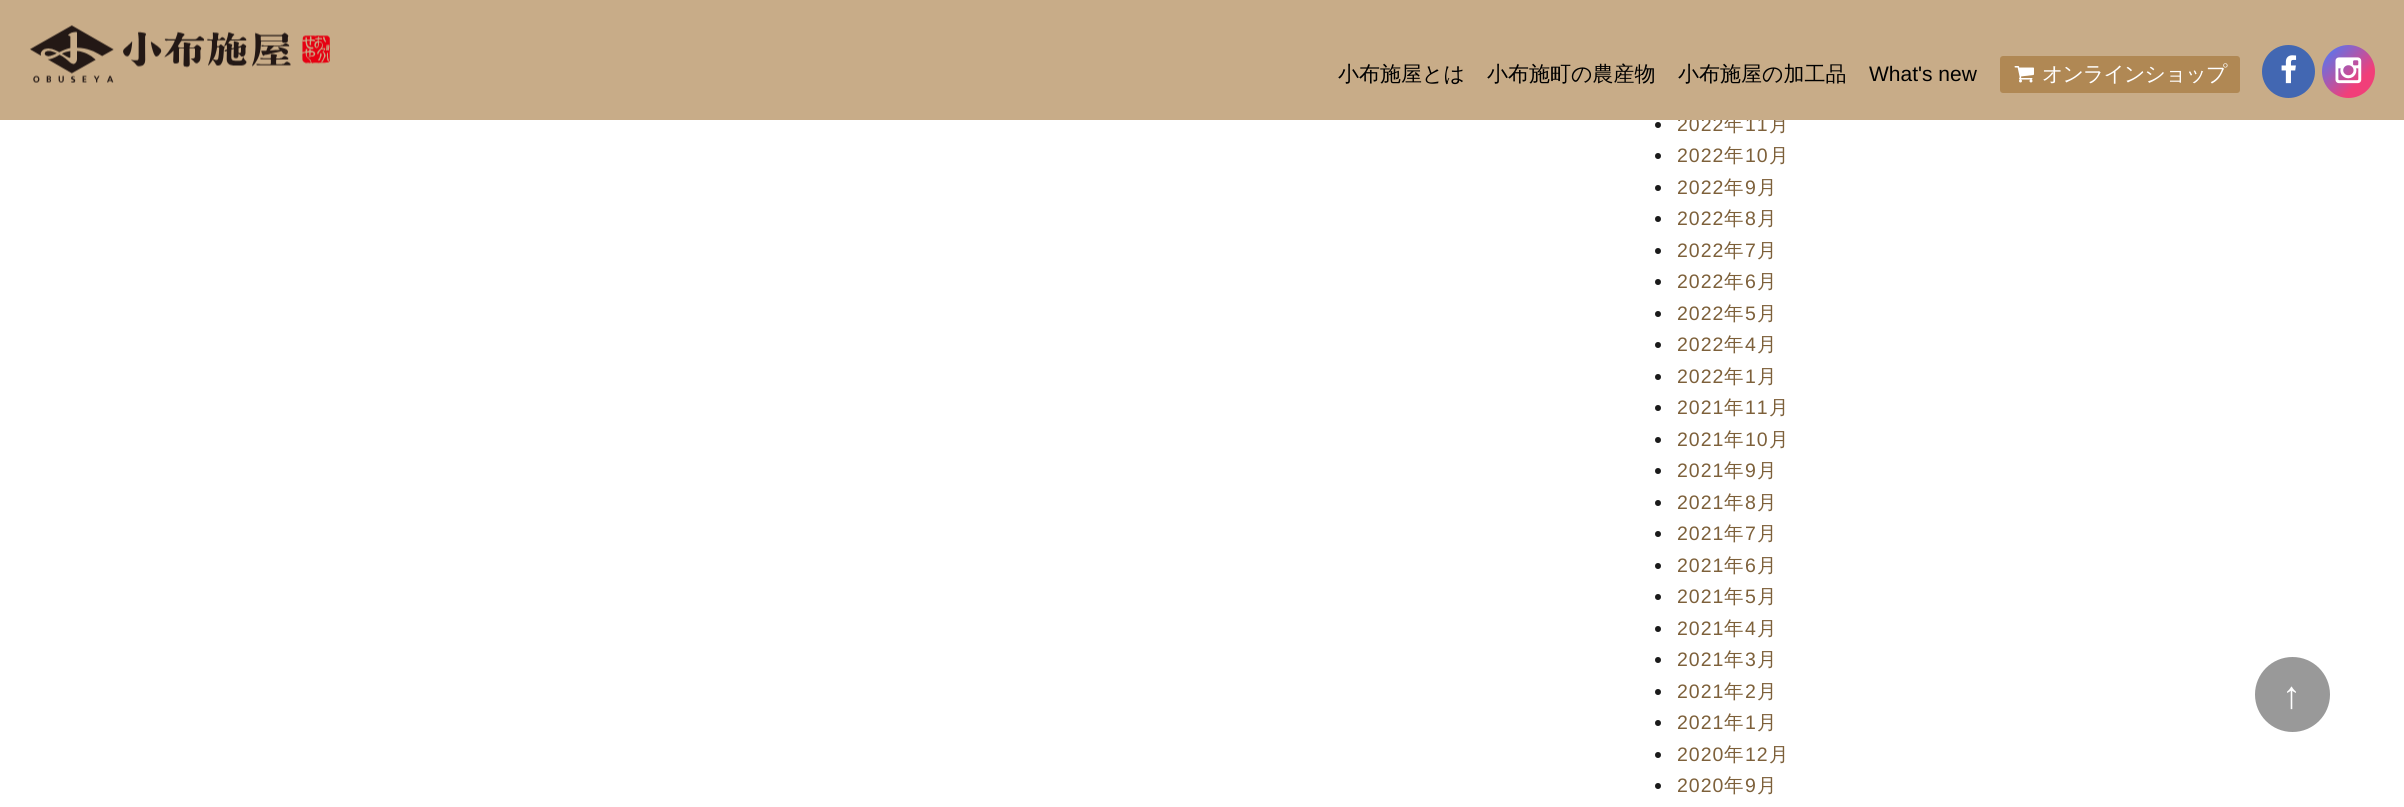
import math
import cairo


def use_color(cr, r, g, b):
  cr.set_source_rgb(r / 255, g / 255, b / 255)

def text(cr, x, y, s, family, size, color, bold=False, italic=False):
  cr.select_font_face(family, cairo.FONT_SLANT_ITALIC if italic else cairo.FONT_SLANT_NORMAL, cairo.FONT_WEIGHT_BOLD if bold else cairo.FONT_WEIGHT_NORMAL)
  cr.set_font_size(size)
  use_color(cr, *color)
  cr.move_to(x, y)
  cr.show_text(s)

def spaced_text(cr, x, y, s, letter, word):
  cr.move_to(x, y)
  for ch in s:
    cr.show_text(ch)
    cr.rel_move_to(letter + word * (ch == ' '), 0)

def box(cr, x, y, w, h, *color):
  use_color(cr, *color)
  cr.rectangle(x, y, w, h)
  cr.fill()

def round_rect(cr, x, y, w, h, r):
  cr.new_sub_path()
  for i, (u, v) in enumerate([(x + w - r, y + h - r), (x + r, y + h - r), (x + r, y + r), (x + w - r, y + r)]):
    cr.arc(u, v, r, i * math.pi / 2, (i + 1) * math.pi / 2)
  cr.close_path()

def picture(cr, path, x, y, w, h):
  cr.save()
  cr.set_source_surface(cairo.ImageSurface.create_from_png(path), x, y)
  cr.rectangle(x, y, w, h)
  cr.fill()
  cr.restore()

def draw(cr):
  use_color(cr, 255, 255, 255)
  cr.paint()
  use_color(cr, 26, 26, 26)
  cr.arc(1658, 125, 3, 0, 2 * math.pi)
  cr.fill()
  cr.arc(1658, 156, 3, 0, 2 * math.pi)
  cr.fill()
  cr.arc(1658, 188, 3, 0, 2 * math.pi)
  cr.fill()
  cr.arc(1658, 219, 3, 0, 2 * math.pi)
  cr.fill()
  cr.arc(1658, 251, 3, 0, 2 * math.pi)
  cr.fill()
  cr.arc(1658, 282, 3, 0, 2 * math.pi)
  cr.fill()
  cr.arc(1658, 314, 3, 0, 2 * math.pi)
  cr.fill()
  cr.arc(1658, 345, 3, 0, 2 * math.pi)
  cr.fill()
  cr.arc(1658, 377, 3, 0, 2 * math.pi)
  cr.fill()
  cr.arc(1658, 408, 3, 0, 2 * math.pi)
  cr.fill()
  cr.arc(1658, 440, 3, 0, 2 * math.pi)
  cr.fill()
  cr.arc(1658, 471, 3, 0, 2 * math.pi)
  cr.fill()
  cr.arc(1658, 503, 3, 0, 2 * math.pi)
  cr.fill()
  cr.arc(1658, 534, 3, 0, 2 * math.pi)
  cr.fill()
  cr.arc(1658, 566, 3, 0, 2 * math.pi)
  cr.fill()
  cr.arc(1658, 597, 3, 0, 2 * math.pi)
  cr.fill()
  cr.arc(1658, 629, 3, 0, 2 * math.pi)
  cr.fill()
  cr.arc(1658, 660, 3, 0, 2 * math.pi)
  cr.fill()
  cr.arc(1658, 692, 3, 0, 2 * math.pi)
  cr.fill()
  cr.arc(1658, 723, 3, 0, 2 * math.pi)
  cr.fill()
  cr.arc(1658, 755, 3, 0, 2 * math.pi)
  cr.fill()
  cr.arc(1658, 786, 3, 0, 2 * math.pi)
  cr.fill()
  use_color(cr, 153, 153, 153)
  cr.arc(2292.5, 694.5, 37.5, 0, 2 * math.pi)
  cr.fill()
  cr.select_font_face("Liberation Sans")
  cr.set_font_size(19.5)
  use_color(cr, 125, 96, 58)
  spaced_text(cr, 1677, 131, "2022", 1, 0)
  cr.select_font_face("WenQuanYi Zen Hei Medium")
  spaced_text(cr, 1724, 131, "年", 1, 0)
  cr.select_font_face("Liberation Sans")
  spaced_text(cr, 1745, 131, "11", 1, 0)
  cr.select_font_face("WenQuanYi Zen Hei Medium")
  spaced_text(cr, 1769, 131, "月", 1, 0)
  box(cr, 0, 0, 2404, 120, 200, 172, 136)
  gradient = cairo.LinearGradient(2322, 45, 2375, 98)
  gradient.add_color_stop_rgba(0, 0.259, 0.494, 1, 1)
  gradient.add_color_stop_rgba(0.7, 0.945, 0.247, 0.475, 1)
  cr.set_source(gradient)
  cr.new_path()
  cr.arc(2348.5, 71.5, 26.5, 0, 2 * math.pi)
  cr.fill()
  picture(cr, "img_04.png", 2335, 57, 27, 27)
  use_color(cr, 66, 103, 178)
  cr.arc(2288.5, 71.5, 26.5, 0, 2 * math.pi)
  cr.fill()
  picture(cr, "img_03.png", 2281, 55, 16, 29)
  use_color(cr, 176, 136, 84)
  round_rect(cr, 2000, 56, 240, 37, 3)
  cr.fill()
  cr.set_font_size(21)
  use_color(cr, 255, 255, 255)
  spaced_text(cr, 2042, 81, "オンラインショップ", -1, 0)
  picture(cr, "img_02.png", 2014, 66, 20, 17)
  text(cr, 1869, 81, "What's new", "Liberation Sans", 21, (0, 0, 0))
  text(cr, 1678, 81, "小布施屋の加工品", "WenQuanYi Zen Hei Medium", 21, (0, 0, 0))
  text(cr, 1487, 81, "小布施町の農産物", "WenQuanYi Zen Hei Medium", 21, (0, 0, 0))
  text(cr, 1338, 81, "小布施屋とは", "WenQuanYi Zen Hei Medium", 21, (0, 0, 0))
  picture(cr, "img_01.png", 30, 25, 300, 58)
  cr.select_font_face("Liberation Sans")
  cr.set_font_size(19.5)
  use_color(cr, 125, 96, 58)
  spaced_text(cr, 1677, 162, "2022", 1, 0)
  cr.select_font_face("WenQuanYi Zen Hei Medium")
  spaced_text(cr, 1724, 162, "年", 1, 0)
  cr.select_font_face("Liberation Sans")
  spaced_text(cr, 1745, 162, "10", 1, 0)
  cr.select_font_face("WenQuanYi Zen Hei Medium")
  spaced_text(cr, 1769, 162, "月", 1, 0)
  cr.select_font_face("Liberation Sans")
  spaced_text(cr, 1677, 194, "2022", 1, 0)
  cr.select_font_face("WenQuanYi Zen Hei Medium")
  spaced_text(cr, 1724, 194, "年", 1, 0)
  cr.select_font_face("Liberation Sans")
  spaced_text(cr, 1745, 194, "9", 1, 0)
  cr.select_font_face("WenQuanYi Zen Hei Medium")
  spaced_text(cr, 1757, 194, "月", 1, 0)
  cr.select_font_face("Liberation Sans")
  spaced_text(cr, 1677, 225, "2022", 1, 0)
  cr.select_font_face("WenQuanYi Zen Hei Medium")
  spaced_text(cr, 1724, 225, "年", 1, 0)
  cr.select_font_face("Liberation Sans")
  spaced_text(cr, 1745, 225, "8", 1, 0)
  cr.select_font_face("WenQuanYi Zen Hei Medium")
  spaced_text(cr, 1757, 225, "月", 1, 0)
  cr.select_font_face("Liberation Sans")
  spaced_text(cr, 1677, 257, "2022", 1, 0)
  cr.select_font_face("WenQuanYi Zen Hei Medium")
  spaced_text(cr, 1724, 257, "年", 1, 0)
  cr.select_font_face("Liberation Sans")
  spaced_text(cr, 1745, 257, "7", 1, 0)
  cr.select_font_face("WenQuanYi Zen Hei Medium")
  spaced_text(cr, 1757, 257, "月", 1, 0)
  cr.select_font_face("Liberation Sans")
  spaced_text(cr, 1677, 288, "2022", 1, 0)
  cr.select_font_face("WenQuanYi Zen Hei Medium")
  spaced_text(cr, 1724, 288, "年", 1, 0)
  cr.select_font_face("Liberation Sans")
  spaced_text(cr, 1745, 288, "6", 1, 0)
  cr.select_font_face("WenQuanYi Zen Hei Medium")
  spaced_text(cr, 1757, 288, "月", 1, 0)
  cr.select_font_face("Liberation Sans")
  spaced_text(cr, 1677, 320, "2022", 1, 0)
  cr.select_font_face("WenQuanYi Zen Hei Medium")
  spaced_text(cr, 1724, 320, "年", 1, 0)
  cr.select_font_face("Liberation Sans")
  spaced_text(cr, 1745, 320, "5", 1, 0)
  cr.select_font_face("WenQuanYi Zen Hei Medium")
  spaced_text(cr, 1757, 320, "月", 1, 0)
  cr.select_font_face("Liberation Sans")
  spaced_text(cr, 1677, 351, "2022", 1, 0)
  cr.select_font_face("WenQuanYi Zen Hei Medium")
  spaced_text(cr, 1724, 351, "年", 1, 0)
  cr.select_font_face("Liberation Sans")
  spaced_text(cr, 1745, 351, "4", 1, 0)
  cr.select_font_face("WenQuanYi Zen Hei Medium")
  spaced_text(cr, 1757, 351, "月", 1, 0)
  cr.select_font_face("Liberation Sans")
  spaced_text(cr, 1677, 383, "2022", 1, 0)
  cr.select_font_face("WenQuanYi Zen Hei Medium")
  spaced_text(cr, 1724, 383, "年", 1, 0)
  cr.select_font_face("Liberation Sans")
  spaced_text(cr, 1745, 383, "1", 1, 0)
  cr.select_font_face("WenQuanYi Zen Hei Medium")
  spaced_text(cr, 1757, 383, "月", 1, 0)
  cr.select_font_face("Liberation Sans")
  spaced_text(cr, 1677, 414, "2021", 1, 0)
  cr.select_font_face("WenQuanYi Zen Hei Medium")
  spaced_text(cr, 1724, 414, "年", 1, 0)
  cr.select_font_face("Liberation Sans")
  spaced_text(cr, 1745, 414, "11", 1, 0)
  cr.select_font_face("WenQuanYi Zen Hei Medium")
  spaced_text(cr, 1769, 414, "月", 1, 0)
  cr.select_font_face("Liberation Sans")
  spaced_text(cr, 1677, 446, "2021", 1, 0)
  cr.select_font_face("WenQuanYi Zen Hei Medium")
  spaced_text(cr, 1724, 446, "年", 1, 0)
  cr.select_font_face("Liberation Sans")
  spaced_text(cr, 1745, 446, "10", 1, 0)
  cr.select_font_face("WenQuanYi Zen Hei Medium")
  spaced_text(cr, 1769, 446, "月", 1, 0)
  cr.select_font_face("Liberation Sans")
  spaced_text(cr, 1677, 477, "2021", 1, 0)
  cr.select_font_face("WenQuanYi Zen Hei Medium")
  spaced_text(cr, 1724, 477, "年", 1, 0)
  cr.select_font_face("Liberation Sans")
  spaced_text(cr, 1745, 477, "9", 1, 0)
  cr.select_font_face("WenQuanYi Zen Hei Medium")
  spaced_text(cr, 1757, 477, "月", 1, 0)
  cr.select_font_face("Liberation Sans")
  spaced_text(cr, 1677, 509, "2021", 1, 0)
  cr.select_font_face("WenQuanYi Zen Hei Medium")
  spaced_text(cr, 1724, 509, "年", 1, 0)
  cr.select_font_face("Liberation Sans")
  spaced_text(cr, 1745, 509, "8", 1, 0)
  cr.select_font_face("WenQuanYi Zen Hei Medium")
  spaced_text(cr, 1757, 509, "月", 1, 0)
  cr.select_font_face("Liberation Sans")
  spaced_text(cr, 1677, 540, "2021", 1, 0)
  cr.select_font_face("WenQuanYi Zen Hei Medium")
  spaced_text(cr, 1724, 540, "年", 1, 0)
  cr.select_font_face("Liberation Sans")
  spaced_text(cr, 1745, 540, "7", 1, 0)
  cr.select_font_face("WenQuanYi Zen Hei Medium")
  spaced_text(cr, 1757, 540, "月", 1, 0)
  cr.select_font_face("Liberation Sans")
  spaced_text(cr, 1677, 572, "2021", 1, 0)
  cr.select_font_face("WenQuanYi Zen Hei Medium")
  spaced_text(cr, 1724, 572, "年", 1, 0)
  cr.select_font_face("Liberation Sans")
  spaced_text(cr, 1745, 572, "6", 1, 0)
  cr.select_font_face("WenQuanYi Zen Hei Medium")
  spaced_text(cr, 1757, 572, "月", 1, 0)
  cr.select_font_face("Liberation Sans")
  spaced_text(cr, 1677, 603, "2021", 1, 0)
  cr.select_font_face("WenQuanYi Zen Hei Medium")
  spaced_text(cr, 1724, 603, "年", 1, 0)
  cr.select_font_face("Liberation Sans")
  spaced_text(cr, 1745, 603, "5", 1, 0)
  cr.select_font_face("WenQuanYi Zen Hei Medium")
  spaced_text(cr, 1757, 603, "月", 1, 0)
  cr.select_font_face("Liberation Sans")
  spaced_text(cr, 1677, 635, "2021", 1, 0)
  cr.select_font_face("WenQuanYi Zen Hei Medium")
  spaced_text(cr, 1724, 635, "年", 1, 0)
  cr.select_font_face("Liberation Sans")
  spaced_text(cr, 1745, 635, "4", 1, 0)
  cr.select_font_face("WenQuanYi Zen Hei Medium")
  spaced_text(cr, 1757, 635, "月", 1, 0)
  cr.select_font_face("Liberation Sans")
  spaced_text(cr, 1677, 666, "2021", 1, 0)
  cr.select_font_face("WenQuanYi Zen Hei Medium")
  spaced_text(cr, 1724, 666, "年", 1, 0)
  cr.select_font_face("Liberation Sans")
  spaced_text(cr, 1745, 666, "3", 1, 0)
  cr.select_font_face("WenQuanYi Zen Hei Medium")
  spaced_text(cr, 1757, 666, "月", 1, 0)
  cr.select_font_face("Liberation Sans")
  spaced_text(cr, 1677, 698, "2021", 1, 0)
  cr.select_font_face("WenQuanYi Zen Hei Medium")
  spaced_text(cr, 1724, 698, "年", 1, 0)
  cr.select_font_face("Liberation Sans")
  spaced_text(cr, 1745, 698, "2", 1, 0)
  cr.select_font_face("WenQuanYi Zen Hei Medium")
  spaced_text(cr, 1757, 698, "月", 1, 0)
  cr.select_font_face("Liberation Sans")
  spaced_text(cr, 1677, 729, "2021", 1, 0)
  cr.select_font_face("WenQuanYi Zen Hei Medium")
  spaced_text(cr, 1724, 729, "年", 1, 0)
  cr.select_font_face("Liberation Sans")
  spaced_text(cr, 1745, 729, "1", 1, 0)
  cr.select_font_face("WenQuanYi Zen Hei Medium")
  spaced_text(cr, 1757, 729, "月", 1, 0)
  cr.select_font_face("Liberation Sans")
  spaced_text(cr, 1677, 761, "2020", 1, 0)
  cr.select_font_face("WenQuanYi Zen Hei Medium")
  spaced_text(cr, 1724, 761, "年", 1, 0)
  cr.select_font_face("Liberation Sans")
  spaced_text(cr, 1745, 761, "12", 1, 0)
  cr.select_font_face("WenQuanYi Zen Hei Medium")
  spaced_text(cr, 1769, 761, "月", 1, 0)
  cr.select_font_face("Liberation Sans")
  spaced_text(cr, 1677, 792, "2020", 1, 0)
  cr.select_font_face("WenQuanYi Zen Hei Medium")
  spaced_text(cr, 1724, 792, "年", 1, 0)
  cr.select_font_face("Liberation Sans")
  spaced_text(cr, 1745, 792, "9", 1, 0)
  cr.select_font_face("WenQuanYi Zen Hei Medium")
  spaced_text(cr, 1757, 792, "月", 1, 0)
  cr.select_font_face("Liberation Sans")
  cr.set_font_size(38)
  use_color(cr, 255, 255, 255)
  spaced_text(cr, 2282, 708, "↑", 1, 0)


surface = cairo.ImageSurface(cairo.FORMAT_RGB24, 2404, 807)
cr = cairo.Context(surface)
options = cairo.FontOptions()
options.set_hint_metrics(cairo.HINT_METRICS_OFF)
options.set_hint_style(cairo.HINT_STYLE_NONE)
cr.set_font_options(options)
cr.set_miter_limit(4)
draw(cr)
surface.write_to_png("out.png")
